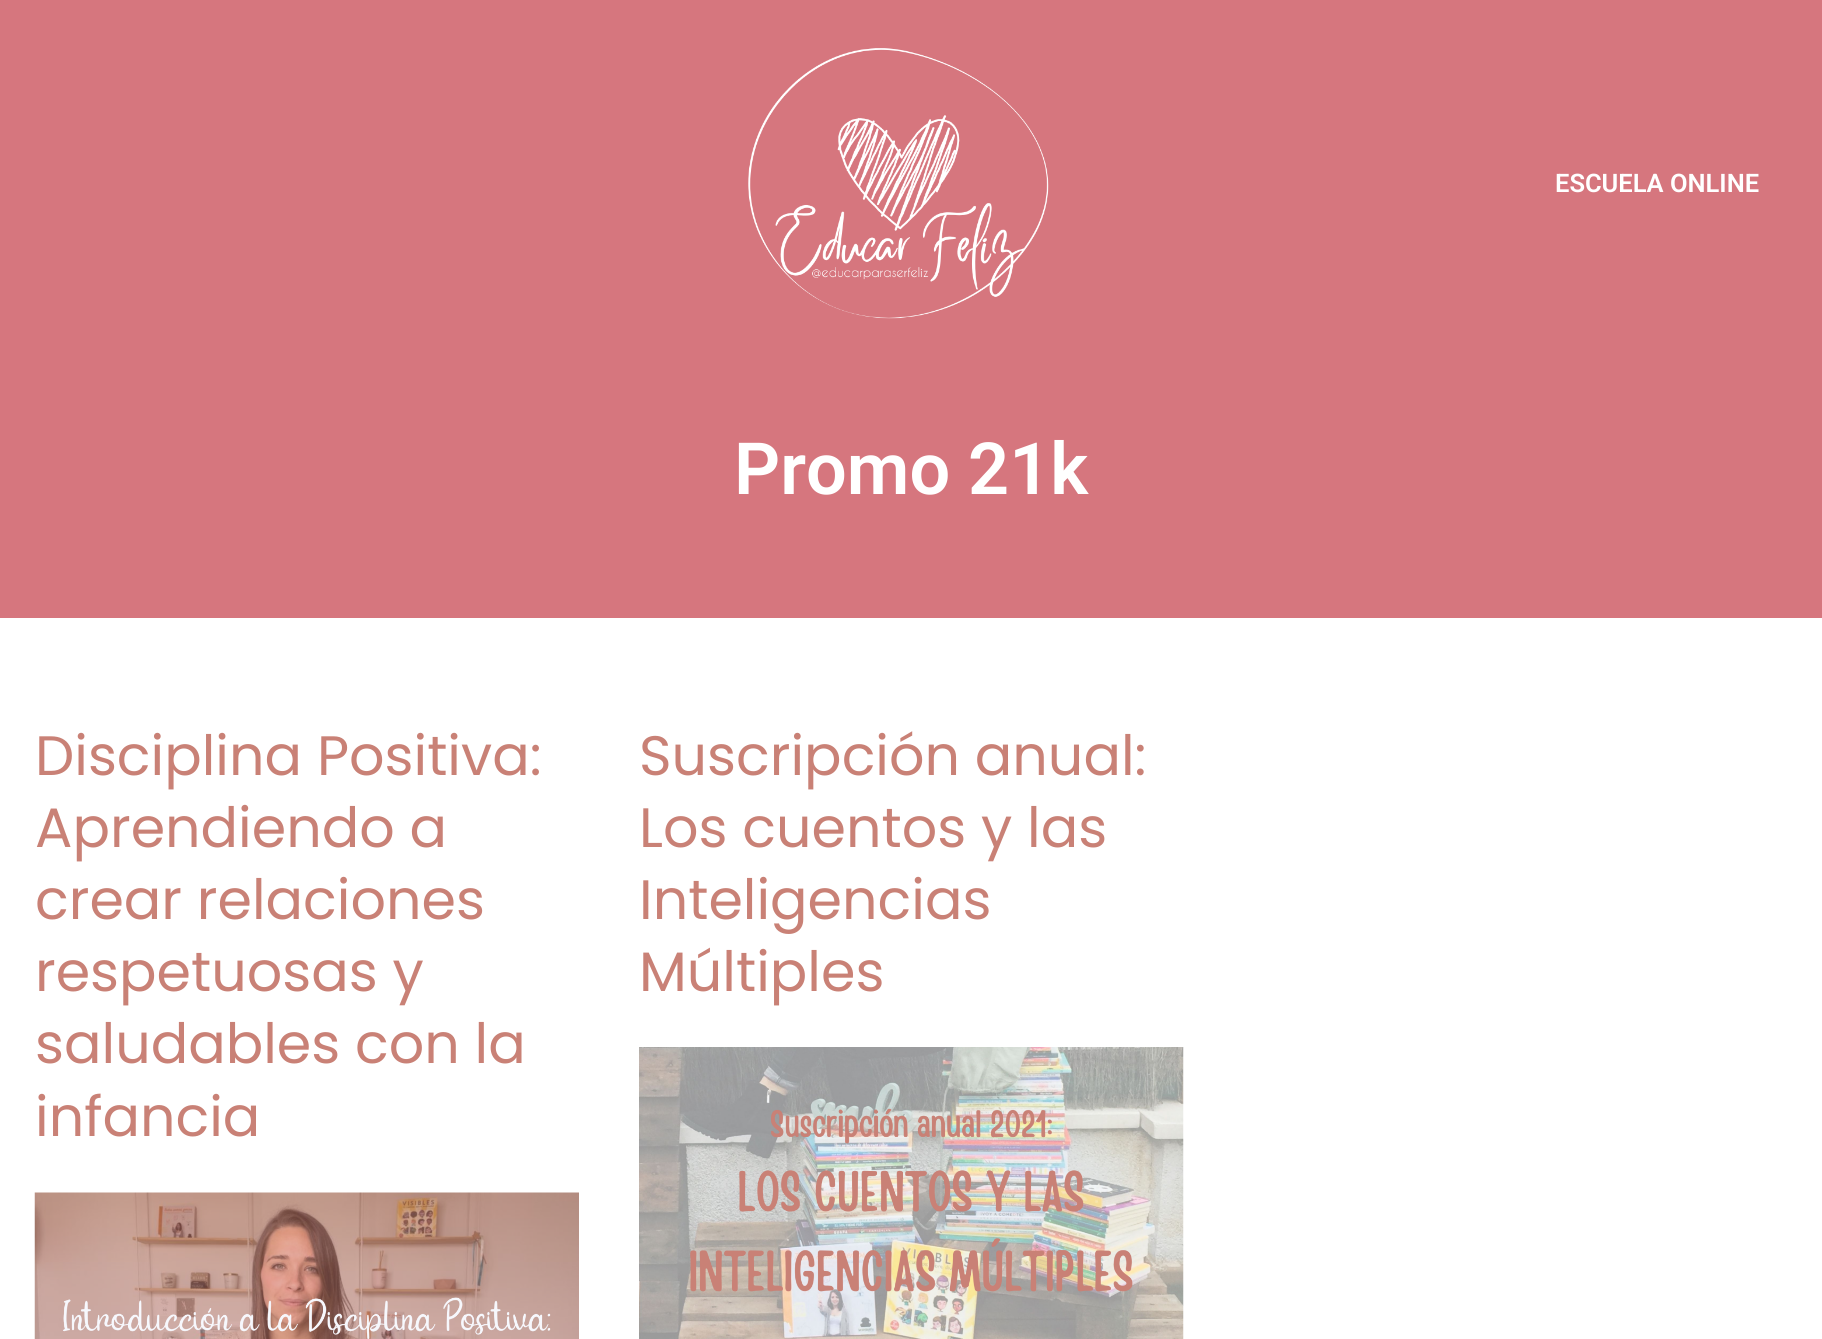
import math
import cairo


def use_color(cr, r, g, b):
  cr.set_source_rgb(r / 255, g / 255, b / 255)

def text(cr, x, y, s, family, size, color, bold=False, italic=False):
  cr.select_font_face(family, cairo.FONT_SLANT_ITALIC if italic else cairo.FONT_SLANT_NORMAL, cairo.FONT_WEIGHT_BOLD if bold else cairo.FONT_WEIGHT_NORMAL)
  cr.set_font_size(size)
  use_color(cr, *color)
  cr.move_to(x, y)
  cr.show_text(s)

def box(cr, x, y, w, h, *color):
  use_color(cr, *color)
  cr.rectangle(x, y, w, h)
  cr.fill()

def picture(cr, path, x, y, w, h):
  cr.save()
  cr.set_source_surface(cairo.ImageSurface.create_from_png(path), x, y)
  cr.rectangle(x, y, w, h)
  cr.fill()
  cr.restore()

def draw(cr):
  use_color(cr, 255, 255, 255)
  cr.paint()
  box(cr, 0, 0, 1822, 618, 214, 118, 126)
  picture(cr, "img_01.png", 748, 48, 301, 271)
  picture(cr, "img_02.png", 34, 1192, 545, 147)
  picture(cr, "img_03.png", 639, 1047, 545, 292)
  text(cr, 1555, 192, "ESCUELA ONLINE", "Roboto SemiBold", 25.5, (255, 255, 255))
  text(cr, 734, 494, "Promo 21k", "Roboto SemiBold", 72, (255, 255, 255))
  text(cr, 35, 775, "Disciplina Positiva:", "Poppins", 55.5, (201, 129, 118))
  text(cr, 35, 847, "Aprendiendo a", "Poppins", 55.5, (201, 129, 118))
  text(cr, 35, 919, "crear relaciones", "Poppins", 55.5, (201, 129, 118))
  text(cr, 35, 991, "respetuosas y", "Poppins", 55.5, (201, 129, 118))
  text(cr, 35, 1063, "saludables con la", "Poppins", 55.5, (201, 129, 118))
  text(cr, 35, 1136, "infancia", "Poppins", 55.5, (201, 129, 118))
  text(cr, 639, 775, "Suscripción anual:", "Poppins", 55.5, (201, 129, 118))
  text(cr, 639, 847, "Los cuentos y las", "Poppins", 55.5, (201, 129, 118))
  text(cr, 639, 919, "Inteligencias", "Poppins", 55.5, (201, 129, 118))
  text(cr, 639, 991, "Múltiples", "Poppins", 55.5, (201, 129, 118))


surface = cairo.ImageSurface(cairo.FORMAT_RGB24, 1822, 1339)
cr = cairo.Context(surface)
options = cairo.FontOptions()
options.set_hint_metrics(cairo.HINT_METRICS_OFF)
options.set_hint_style(cairo.HINT_STYLE_NONE)
cr.set_font_options(options)
cr.set_miter_limit(4)
draw(cr)
surface.write_to_png("out.png")
